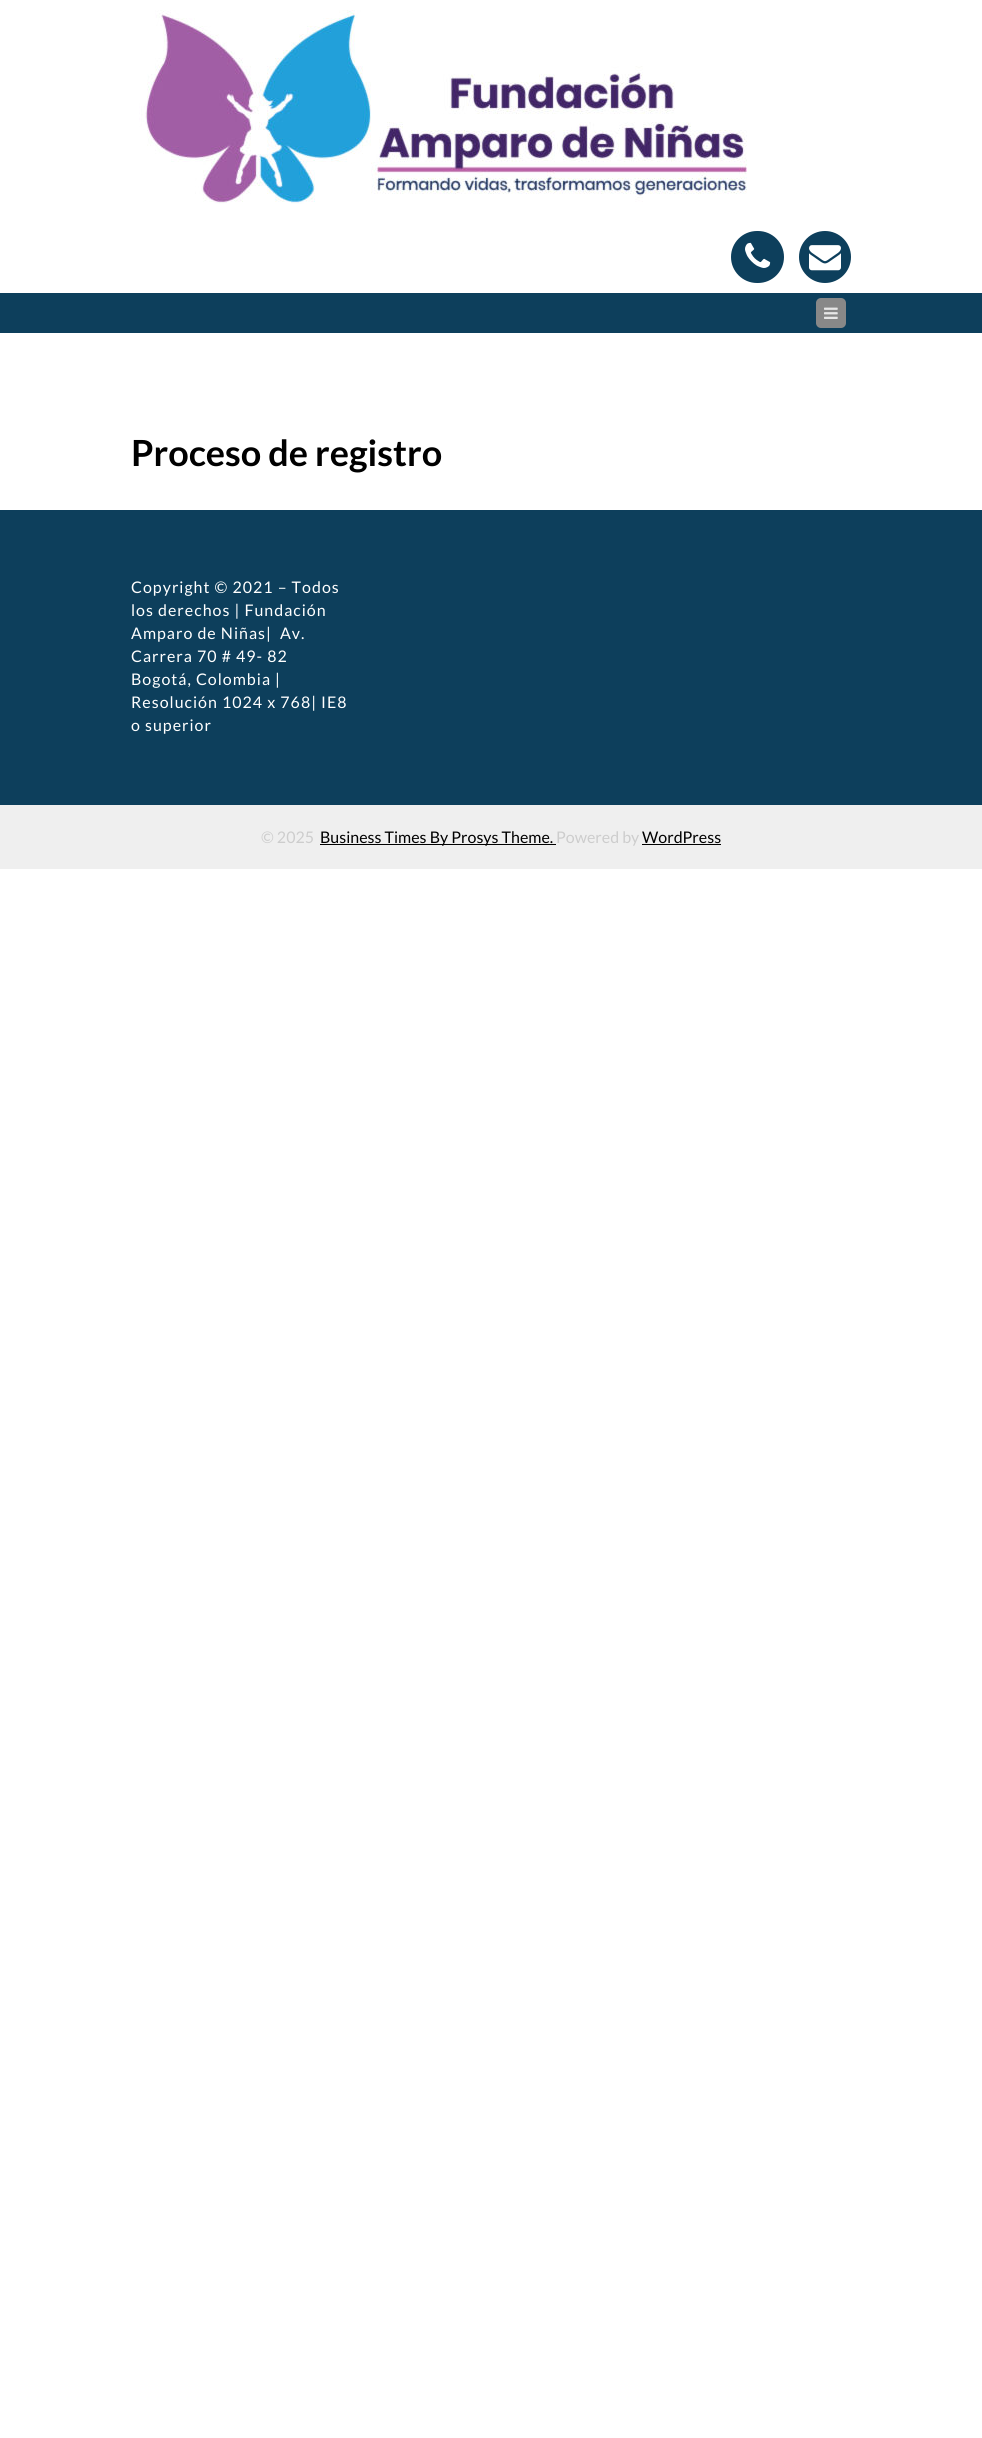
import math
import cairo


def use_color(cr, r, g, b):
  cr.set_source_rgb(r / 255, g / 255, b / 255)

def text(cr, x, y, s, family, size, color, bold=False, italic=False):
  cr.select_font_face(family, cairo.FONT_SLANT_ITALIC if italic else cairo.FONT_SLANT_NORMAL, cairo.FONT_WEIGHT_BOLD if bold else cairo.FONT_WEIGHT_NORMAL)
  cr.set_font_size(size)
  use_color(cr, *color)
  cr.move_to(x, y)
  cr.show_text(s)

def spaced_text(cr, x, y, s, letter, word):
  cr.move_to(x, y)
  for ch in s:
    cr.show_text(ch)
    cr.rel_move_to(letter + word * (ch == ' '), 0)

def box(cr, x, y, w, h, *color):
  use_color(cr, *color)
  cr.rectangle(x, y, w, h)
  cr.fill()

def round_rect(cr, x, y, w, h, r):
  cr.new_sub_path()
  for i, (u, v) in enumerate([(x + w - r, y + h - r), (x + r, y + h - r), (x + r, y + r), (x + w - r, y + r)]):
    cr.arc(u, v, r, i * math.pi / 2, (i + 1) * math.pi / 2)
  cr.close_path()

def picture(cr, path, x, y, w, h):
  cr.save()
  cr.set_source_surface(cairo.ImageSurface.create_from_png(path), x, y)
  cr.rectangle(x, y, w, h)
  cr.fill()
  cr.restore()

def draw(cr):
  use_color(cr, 255, 255, 255)
  cr.paint()
  picture(cr, "img_01.png", 139, 10, 608, 194)
  use_color(cr, 13, 63, 92)
  round_rect(cr, 731, 231, 53, 52, 26)
  cr.fill()
  picture(cr, "img_02.png", 745, 242, 26, 26)
  cr.arc(825, 257, 26, 0, 2 * math.pi)
  cr.fill()
  picture(cr, "img_03.png", 809, 245, 32, 26)
  box(cr, 0, 293, 982, 40, 13, 63, 92)
  use_color(cr, 136, 136, 136)
  round_rect(cr, 816, 298, 30, 30, 5)
  cr.fill()
  picture(cr, "img_04.png", 824, 307, 14, 12)
  box(cr, 0, 510, 982, 295, 13, 63, 92)
  box(cr, 0, 805, 982, 64, 239, 239, 239)
  box(cr, 320, 844, 236, 1, 0, 0, 0)
  box(cr, 642, 844, 79, 1, 0, 0, 0)
  text(cr, 131, 466, "Proceso de registro", "Lato", 36, (0, 0, 0), bold=True)
  cr.select_font_face("Lato")
  cr.set_font_size(16)
  use_color(cr, 255, 255, 255)
  spaced_text(cr, 131, 593, "Copyright © 2021 – Todos", 1, 0)
  spaced_text(cr, 131, 616, "los derechos | Fundación", 1, 0)
  spaced_text(cr, 131, 639, "Amparo de Niñas|  Av.", 1, 0)
  spaced_text(cr, 131, 662, "Carrera 70 # 49- 82", 1, 0)
  spaced_text(cr, 131, 685, "Bogotá, Colombia |", 1, 0)
  spaced_text(cr, 131, 708, "Resolución 1024 x 768| IE8", 1, 0)
  spaced_text(cr, 131, 731, "o superior", 1, 0)
  text(cr, 261, 843, "© 2025", "Lato", 16, (205, 205, 205))
  text(cr, 320, 843, "Business Times By Prosys Theme.", "Lato", 16, (0, 0, 0))
  text(cr, 556, 843, "Powered by", "Lato", 16, (205, 205, 205))
  text(cr, 642, 843, "WordPress", "Lato", 16, (0, 0, 0))


surface = cairo.ImageSurface(cairo.FORMAT_RGB24, 982, 2438)
cr = cairo.Context(surface)
options = cairo.FontOptions()
options.set_hint_metrics(cairo.HINT_METRICS_OFF)
options.set_hint_style(cairo.HINT_STYLE_NONE)
cr.set_font_options(options)
cr.set_miter_limit(4)
draw(cr)
surface.write_to_png("out.png")
